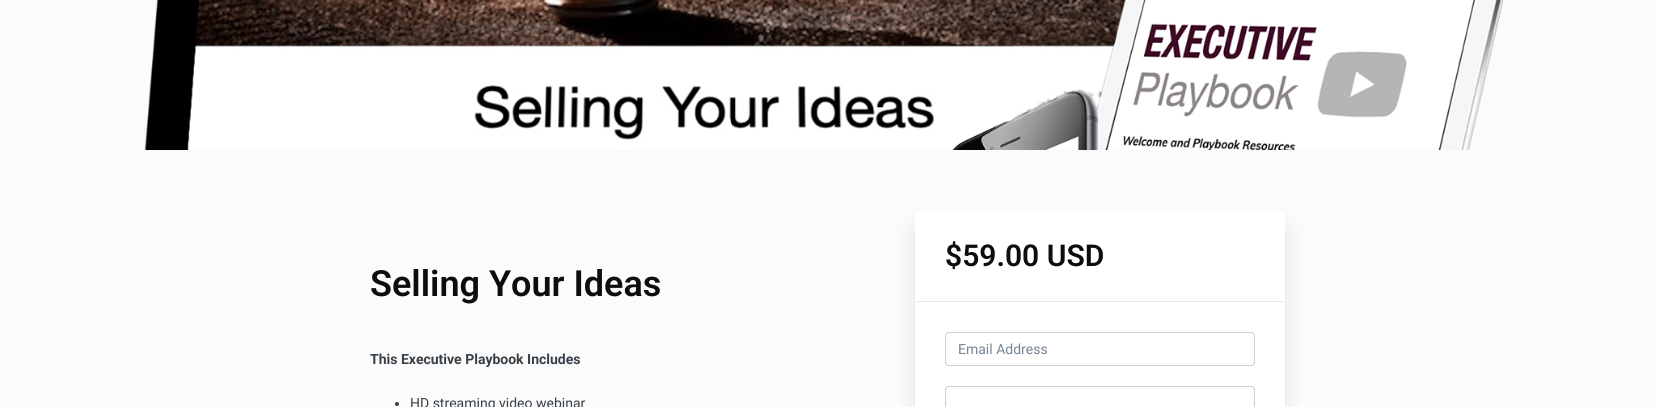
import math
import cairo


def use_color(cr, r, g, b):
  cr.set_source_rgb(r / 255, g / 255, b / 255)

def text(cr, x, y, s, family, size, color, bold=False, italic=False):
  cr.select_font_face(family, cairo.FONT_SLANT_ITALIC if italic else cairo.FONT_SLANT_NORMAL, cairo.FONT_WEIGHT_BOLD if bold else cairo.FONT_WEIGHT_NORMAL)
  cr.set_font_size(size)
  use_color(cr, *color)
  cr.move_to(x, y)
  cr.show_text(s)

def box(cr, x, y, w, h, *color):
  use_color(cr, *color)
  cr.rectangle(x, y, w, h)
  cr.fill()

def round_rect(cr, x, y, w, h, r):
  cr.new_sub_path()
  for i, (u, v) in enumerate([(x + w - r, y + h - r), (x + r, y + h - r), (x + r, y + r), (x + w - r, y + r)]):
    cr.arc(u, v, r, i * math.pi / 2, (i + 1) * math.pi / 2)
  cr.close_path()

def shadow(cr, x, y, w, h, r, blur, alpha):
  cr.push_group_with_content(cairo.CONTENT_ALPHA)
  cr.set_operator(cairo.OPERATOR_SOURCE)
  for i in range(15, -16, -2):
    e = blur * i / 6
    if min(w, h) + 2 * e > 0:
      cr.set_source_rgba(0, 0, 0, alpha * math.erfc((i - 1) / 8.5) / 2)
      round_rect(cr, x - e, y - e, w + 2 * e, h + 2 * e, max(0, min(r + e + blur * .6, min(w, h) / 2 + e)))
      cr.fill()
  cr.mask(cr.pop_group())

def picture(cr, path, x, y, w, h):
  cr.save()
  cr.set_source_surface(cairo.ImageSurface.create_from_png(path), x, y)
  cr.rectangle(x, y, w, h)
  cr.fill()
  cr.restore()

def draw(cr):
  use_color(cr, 251, 251, 251)
  cr.paint()
  picture(cr, "img_01.png", 144, 0, 1360, 150)
  use_color(cr, 55, 63, 71)
  cr.arc(397, 404, 2, 0, 2 * math.pi)
  cr.fill()
  use_color(cr, 0, 0, 0)
  shadow(cr, 915, 226, 370, 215, 4, 10, 0.1)
  use_color(cr, 255, 255, 255)
  round_rect(cr, 915, 211, 370, 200, 4)
  cr.fill()
  box(cr, 915, 301, 370, 1, 229, 233, 233)
  round_rect(cr, 945.5, 332.5, 309, 33, 3.5)
  use_color(cr, 199, 207, 216)
  cr.set_line_width(1)
  cr.stroke()
  round_rect(cr, 945.5, 386.5, 309, 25, 3.5)
  cr.stroke()
  text(cr, 370, 296, "Selling Your Ideas", "Roboto SemiBold", 36, (13, 13, 13))
  text(cr, 370, 364, "This Executive Playbook Includes", "Roboto", 14, (55, 63, 71), bold=True)
  text(cr, 410, 408, "HD streaming video webinar", "Roboto", 14, (55, 63, 71))
  text(cr, 945, 266, "$59.00 USD", "Roboto SemiBold", 30, (13, 13, 13))
  text(cr, 958, 354, "Email Address", "Roboto", 14, (116, 132, 147))


surface = cairo.ImageSurface(cairo.FORMAT_RGB24, 1655, 407)
cr = cairo.Context(surface)
options = cairo.FontOptions()
options.set_hint_metrics(cairo.HINT_METRICS_OFF)
options.set_hint_style(cairo.HINT_STYLE_NONE)
cr.set_font_options(options)
cr.set_miter_limit(4)
draw(cr)
surface.write_to_png("out.png")
